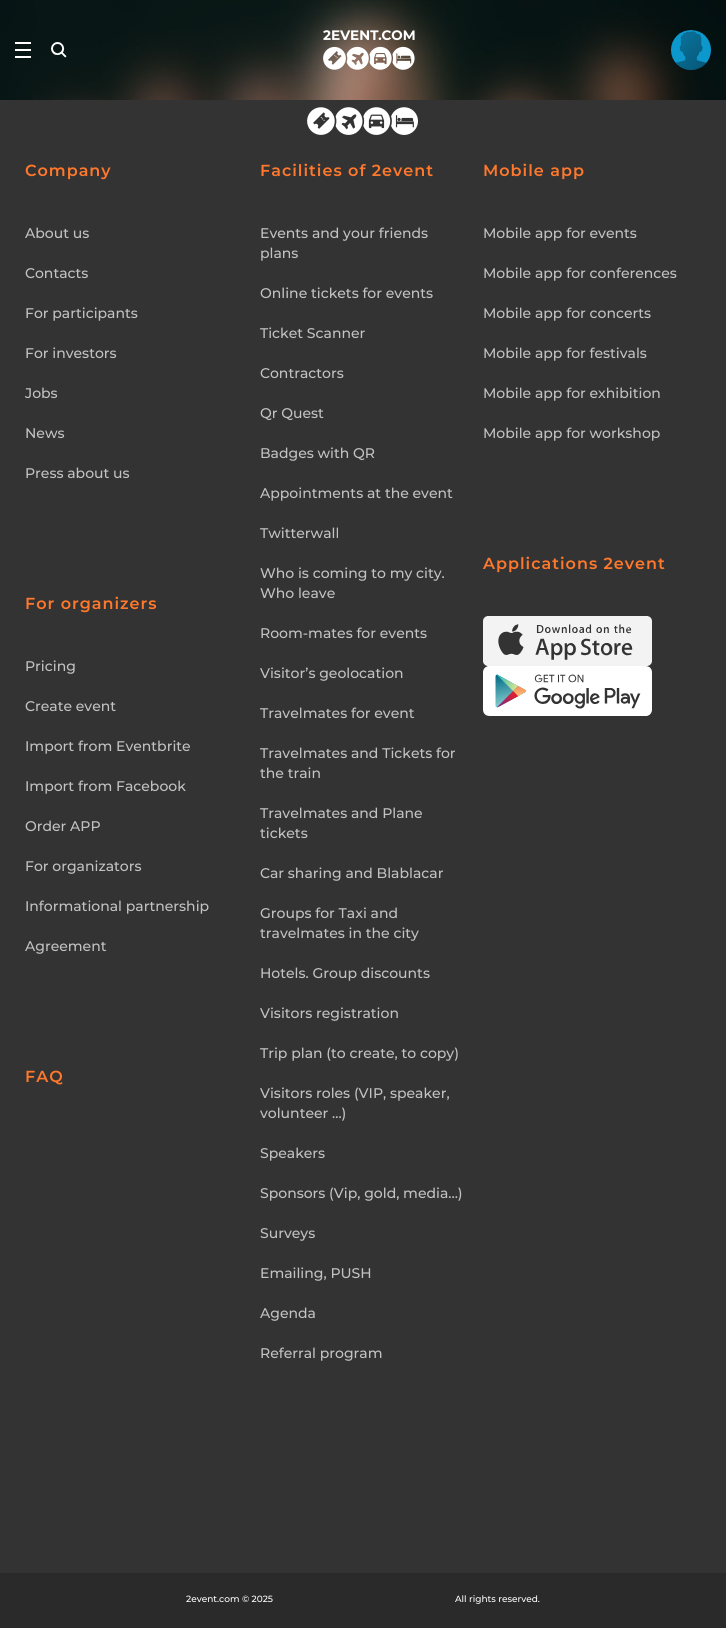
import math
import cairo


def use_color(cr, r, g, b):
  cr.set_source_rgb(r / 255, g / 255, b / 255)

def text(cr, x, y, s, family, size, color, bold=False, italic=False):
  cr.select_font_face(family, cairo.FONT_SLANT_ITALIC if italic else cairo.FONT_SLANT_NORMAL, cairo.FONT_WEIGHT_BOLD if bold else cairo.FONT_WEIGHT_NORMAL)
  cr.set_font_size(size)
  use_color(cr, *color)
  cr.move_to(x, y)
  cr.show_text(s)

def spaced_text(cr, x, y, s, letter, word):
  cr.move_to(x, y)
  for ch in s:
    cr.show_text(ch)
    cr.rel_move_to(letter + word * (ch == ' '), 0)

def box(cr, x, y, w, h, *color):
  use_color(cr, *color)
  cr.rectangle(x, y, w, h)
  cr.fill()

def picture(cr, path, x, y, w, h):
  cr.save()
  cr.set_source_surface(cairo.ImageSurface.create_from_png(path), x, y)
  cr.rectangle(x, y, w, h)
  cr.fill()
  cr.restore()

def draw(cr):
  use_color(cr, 51, 51, 51)
  cr.paint()
  picture(cr, "img_01.png", 0, 0, 726, 100)
  picture(cr, "img_02.png", 15, 42, 16, 16)
  picture(cr, "img_03.png", 51, 42, 16, 16)
  picture(cr, "img_04.png", 323, 30, 92, 40)
  picture(cr, "img_05.png", 671, 30, 40, 40)
  picture(cr, "img_06.png", 307, 107, 111, 28)
  picture(cr, "img_07.png", 483, 616, 169, 50)
  picture(cr, "img_08.png", 483, 666, 169, 50)
  box(cr, 0, 1573, 726, 55, 42, 42, 42)
  cr.select_font_face("Montserrat SemiBold")
  cr.set_font_size(16)
  use_color(cr, 255, 120, 43)
  spaced_text(cr, 25, 176, "Company", 1, 0)
  text(cr, 25, 238, "About us", "Montserrat Medium", 14, (194, 194, 194))
  text(cr, 25, 278, "Contacts", "Montserrat Medium", 14, (194, 194, 194))
  text(cr, 25, 318, "For participants", "Montserrat Medium", 14, (194, 194, 194))
  text(cr, 25, 358, "For investors", "Montserrat Medium", 14, (194, 194, 194))
  text(cr, 25, 398, "Jobs", "Montserrat Medium", 14, (194, 194, 194))
  text(cr, 25, 438, "News", "Montserrat Medium", 14, (194, 194, 194))
  text(cr, 25, 478, "Press about us", "Montserrat Medium", 14, (194, 194, 194))
  cr.select_font_face("Montserrat SemiBold")
  cr.set_font_size(16)
  use_color(cr, 255, 120, 43)
  spaced_text(cr, 25, 609, "For organizers", 1, 0)
  text(cr, 25, 671, "Pricing", "Montserrat Medium", 14, (194, 194, 194))
  text(cr, 25, 711, "Create event", "Montserrat Medium", 14, (194, 194, 194))
  text(cr, 25, 751, "Import from Eventbrite", "Montserrat Medium", 14, (194, 194, 194))
  text(cr, 25, 791, "Import from Facebook", "Montserrat Medium", 14, (194, 194, 194))
  text(cr, 25, 831, "Order APP", "Montserrat Medium", 14, (194, 194, 194))
  text(cr, 25, 871, "For organizators", "Montserrat Medium", 14, (194, 194, 194))
  text(cr, 25, 911, "Informational partnership", "Montserrat Medium", 14, (194, 194, 194))
  text(cr, 25, 951, "Agreement", "Montserrat Medium", 14, (194, 194, 194))
  cr.select_font_face("Montserrat SemiBold")
  cr.set_font_size(16)
  use_color(cr, 255, 120, 43)
  spaced_text(cr, 25, 1082, "FAQ", 1, 0)
  spaced_text(cr, 260, 176, "Facilities of 2event", 1, 0)
  text(cr, 260, 238, "Events and your friends", "Montserrat Medium", 14, (194, 194, 194))
  text(cr, 260, 258, "plans", "Montserrat Medium", 14, (194, 194, 194))
  text(cr, 260, 298, "Online tickets for events", "Montserrat Medium", 14, (194, 194, 194))
  text(cr, 260, 338, "Ticket Scanner", "Montserrat Medium", 14, (194, 194, 194))
  text(cr, 260, 378, "Contractors", "Montserrat Medium", 14, (194, 194, 194))
  text(cr, 260, 418, "Qr Quest", "Montserrat Medium", 14, (194, 194, 194))
  text(cr, 260, 458, "Badges with QR", "Montserrat Medium", 14, (194, 194, 194))
  text(cr, 260, 498, "Appointments at the event", "Montserrat Medium", 14, (194, 194, 194))
  text(cr, 260, 538, "Twitterwall", "Montserrat Medium", 14, (194, 194, 194))
  text(cr, 260, 578, "Who is coming to my city.", "Montserrat Medium", 14, (194, 194, 194))
  text(cr, 260, 598, "Who leave", "Montserrat Medium", 14, (194, 194, 194))
  text(cr, 260, 638, "Room-mates for events", "Montserrat Medium", 14, (194, 194, 194))
  text(cr, 260, 678, "Visitor’s geolocation", "Montserrat Medium", 14, (194, 194, 194))
  text(cr, 260, 718, "Travelmates for event", "Montserrat Medium", 14, (194, 194, 194))
  text(cr, 260, 758, "Travelmates and Tickets for", "Montserrat Medium", 14, (194, 194, 194))
  text(cr, 260, 778, "the train", "Montserrat Medium", 14, (194, 194, 194))
  text(cr, 260, 818, "Travelmates and Plane", "Montserrat Medium", 14, (194, 194, 194))
  text(cr, 260, 838, "tickets", "Montserrat Medium", 14, (194, 194, 194))
  text(cr, 260, 878, "Car sharing and Blablacar", "Montserrat Medium", 14, (194, 194, 194))
  text(cr, 260, 918, "Groups for Taxi and", "Montserrat Medium", 14, (194, 194, 194))
  text(cr, 260, 938, "travelmates in the city", "Montserrat Medium", 14, (194, 194, 194))
  text(cr, 260, 978, "Hotels. Group discounts", "Montserrat Medium", 14, (194, 194, 194))
  text(cr, 260, 1018, "Visitors registration", "Montserrat Medium", 14, (194, 194, 194))
  text(cr, 260, 1058, "Trip plan (to create, to copy)", "Montserrat Medium", 14, (194, 194, 194))
  text(cr, 260, 1098, "Visitors roles (VIP, speaker,", "Montserrat Medium", 14, (194, 194, 194))
  text(cr, 260, 1118, "volunteer ...)", "Montserrat Medium", 14, (194, 194, 194))
  text(cr, 260, 1158, "Speakers", "Montserrat Medium", 14, (194, 194, 194))
  text(cr, 260, 1198, "Sponsors (Vip, gold, media...)", "Montserrat Medium", 14, (194, 194, 194))
  text(cr, 260, 1238, "Surveys", "Montserrat Medium", 14, (194, 194, 194))
  text(cr, 260, 1278, "Emailing, PUSH", "Montserrat Medium", 14, (194, 194, 194))
  text(cr, 260, 1318, "Agenda", "Montserrat Medium", 14, (194, 194, 194))
  text(cr, 260, 1358, "Referral program", "Montserrat Medium", 14, (194, 194, 194))
  cr.select_font_face("Montserrat SemiBold")
  cr.set_font_size(16)
  use_color(cr, 255, 120, 43)
  spaced_text(cr, 483, 176, "Mobile app", 1, 0)
  text(cr, 483, 238, "Mobile app for events", "Montserrat Medium", 14, (194, 194, 194))
  text(cr, 483, 278, "Mobile app for conferences", "Montserrat Medium", 14, (194, 194, 194))
  text(cr, 483, 318, "Mobile app for concerts", "Montserrat Medium", 14, (194, 194, 194))
  text(cr, 483, 358, "Mobile app for festivals", "Montserrat Medium", 14, (194, 194, 194))
  text(cr, 483, 398, "Mobile app for exhibition", "Montserrat Medium", 14, (194, 194, 194))
  text(cr, 483, 438, "Mobile app for workshop", "Montserrat Medium", 14, (194, 194, 194))
  cr.select_font_face("Montserrat SemiBold")
  cr.set_font_size(16)
  use_color(cr, 255, 120, 43)
  spaced_text(cr, 483, 569, "Applications 2event", 1, 0)
  text(cr, 186, 1602, "2event.com © 2025", "Montserrat Medium", 9, (255, 255, 255))
  text(cr, 455, 1602, "All rights reserved.", "Montserrat Medium", 9, (255, 255, 255))


surface = cairo.ImageSurface(cairo.FORMAT_RGB24, 726, 1628)
cr = cairo.Context(surface)
options = cairo.FontOptions()
options.set_hint_metrics(cairo.HINT_METRICS_OFF)
options.set_hint_style(cairo.HINT_STYLE_NONE)
cr.set_font_options(options)
cr.set_miter_limit(4)
draw(cr)
surface.write_to_png("out.png")
